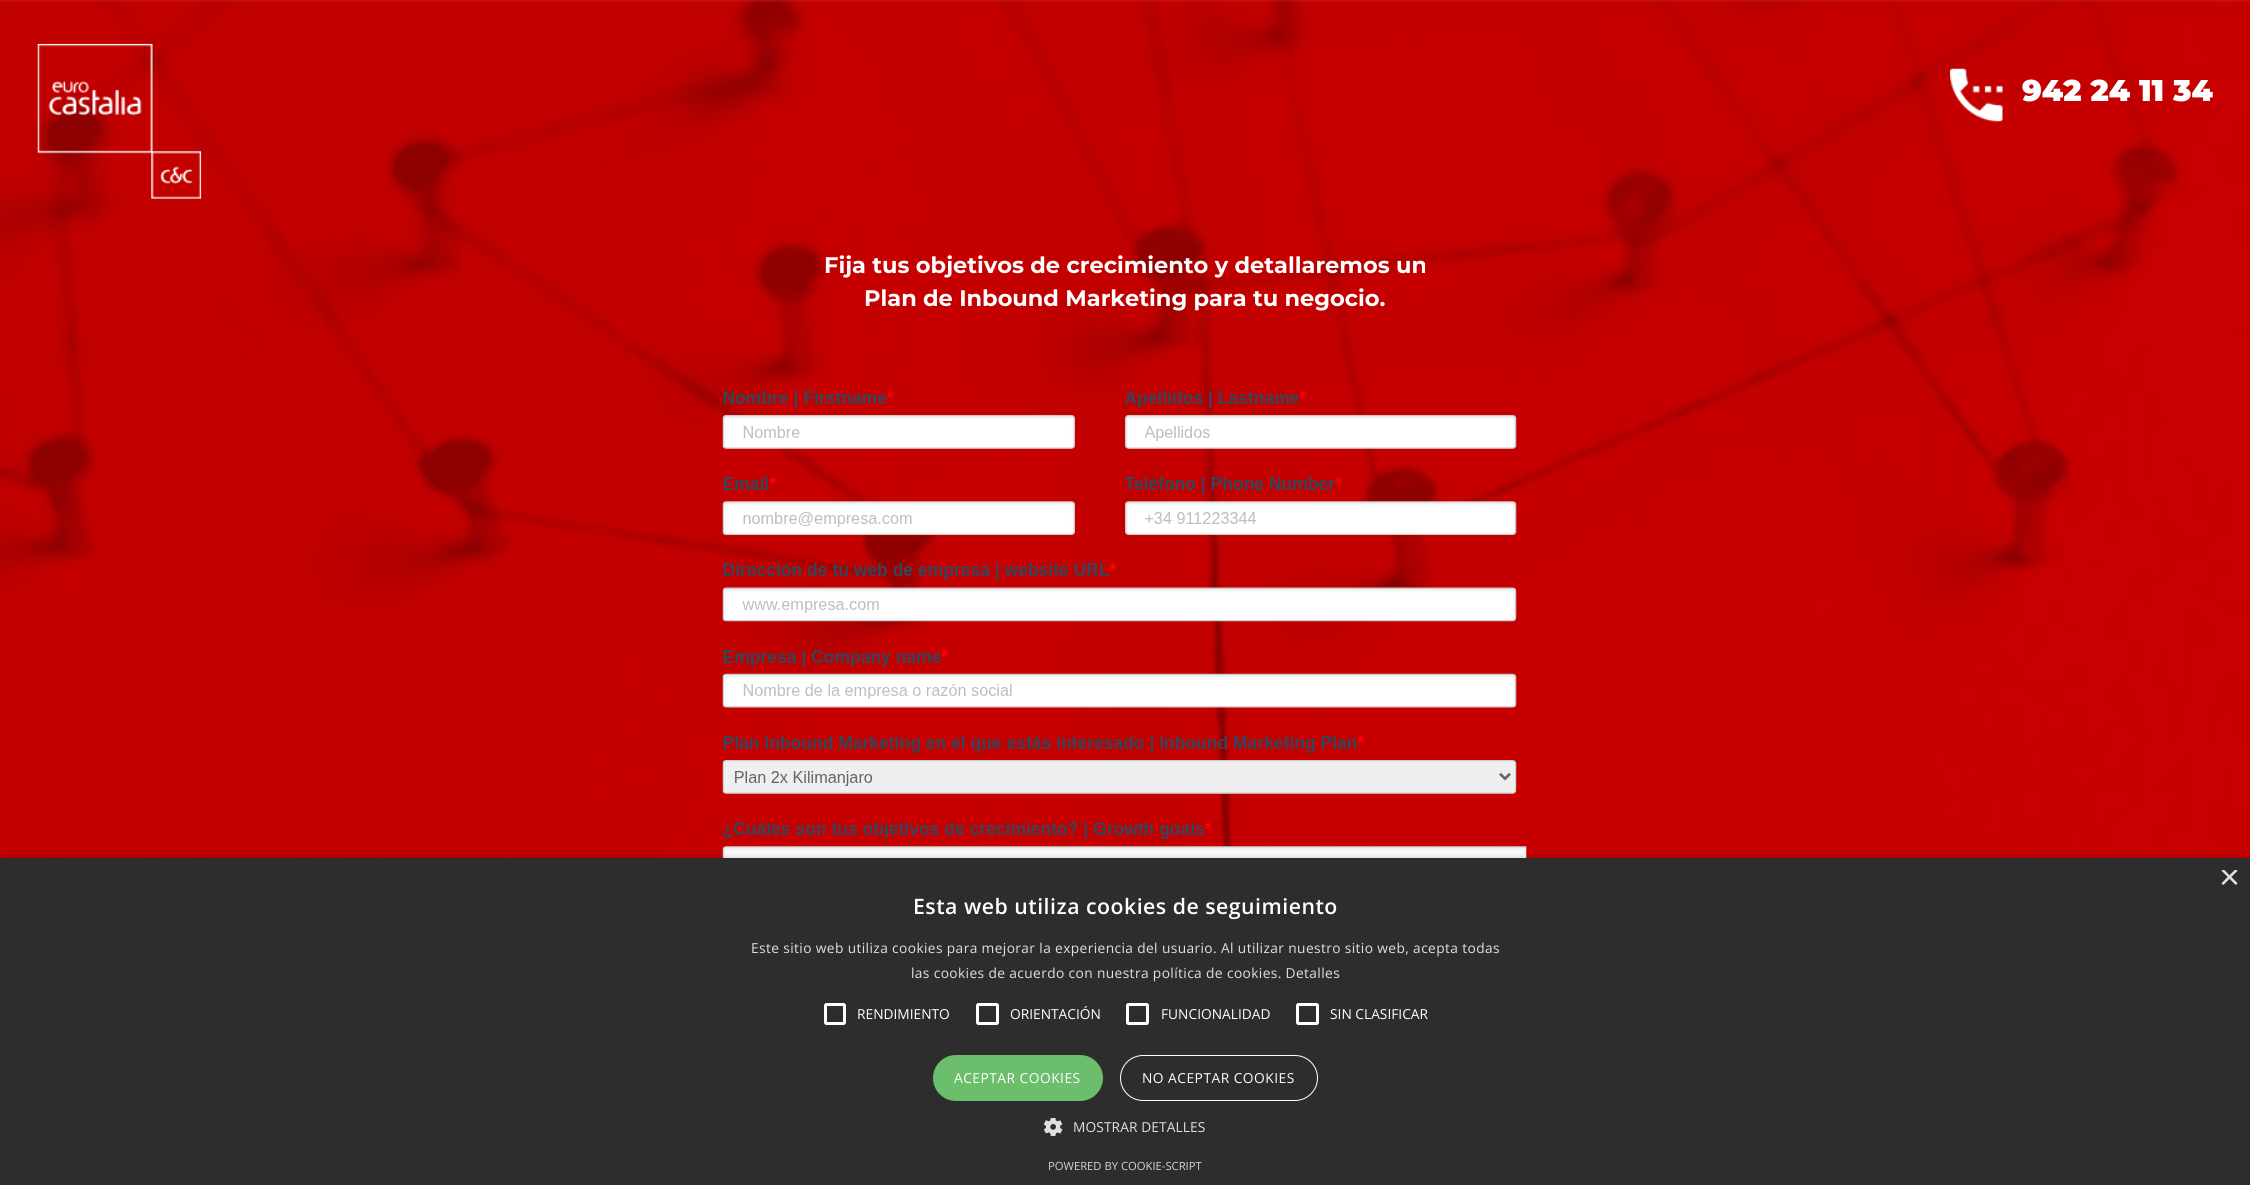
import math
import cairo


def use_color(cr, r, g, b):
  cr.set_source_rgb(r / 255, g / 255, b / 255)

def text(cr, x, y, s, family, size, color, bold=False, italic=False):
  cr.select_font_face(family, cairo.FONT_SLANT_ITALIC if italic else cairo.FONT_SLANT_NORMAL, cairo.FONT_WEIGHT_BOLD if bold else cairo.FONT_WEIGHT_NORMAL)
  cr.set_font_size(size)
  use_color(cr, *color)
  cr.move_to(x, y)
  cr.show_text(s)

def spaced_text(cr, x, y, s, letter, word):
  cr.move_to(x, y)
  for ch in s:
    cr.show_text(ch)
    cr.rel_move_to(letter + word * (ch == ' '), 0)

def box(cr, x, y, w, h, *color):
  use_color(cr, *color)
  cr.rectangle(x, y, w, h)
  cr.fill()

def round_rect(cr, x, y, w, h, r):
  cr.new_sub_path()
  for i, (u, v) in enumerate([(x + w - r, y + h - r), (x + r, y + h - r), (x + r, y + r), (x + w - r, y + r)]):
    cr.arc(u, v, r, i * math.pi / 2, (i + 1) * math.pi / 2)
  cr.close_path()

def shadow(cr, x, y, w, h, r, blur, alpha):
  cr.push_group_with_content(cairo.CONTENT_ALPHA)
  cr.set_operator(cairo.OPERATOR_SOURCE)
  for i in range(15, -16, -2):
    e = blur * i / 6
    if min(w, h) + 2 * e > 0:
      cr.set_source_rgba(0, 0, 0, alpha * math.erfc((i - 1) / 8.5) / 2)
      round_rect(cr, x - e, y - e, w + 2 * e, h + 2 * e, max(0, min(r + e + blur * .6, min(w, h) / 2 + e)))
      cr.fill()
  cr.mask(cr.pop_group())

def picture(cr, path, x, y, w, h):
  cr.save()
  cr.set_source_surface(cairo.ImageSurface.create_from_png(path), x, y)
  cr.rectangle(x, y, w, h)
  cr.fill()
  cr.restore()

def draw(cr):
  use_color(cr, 255, 255, 255)
  cr.paint()
  picture(cr, "img_01.png", 0, 0, 2250, 858)
  picture(cr, "img_02.png", 37, 43, 165, 156)
  picture(cr, "img_03.png", 1950, 68, 53, 54)
  picture(cr, "img_04.png", 722, 391, 805, 467)
  use_color(cr, 0, 0, 0)
  shadow(cr, 1, 860, 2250, 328, 0, 5, 0.35)
  box(cr, 0, 858, 2250, 327, 45, 45, 45)
  round_rect(cr, 825.5, 1004.5, 19, 19, 1)
  use_color(cr, 255, 255, 255)
  cr.set_line_width(3)
  cr.stroke()
  round_rect(cr, 977.5, 1004.5, 20, 19, 1)
  cr.stroke()
  round_rect(cr, 1127.5, 1004.5, 20, 19, 1)
  cr.stroke()
  round_rect(cr, 1297.5, 1004.5, 20, 19, 1)
  cr.stroke()
  use_color(cr, 107, 190, 107)
  round_rect(cr, 933, 1055, 170, 46, 23)
  cr.fill()
  round_rect(cr, 1120.5, 1055.5, 197, 45, 22.5)
  use_color(cr, 255, 255, 255)
  cr.set_line_width(1)
  cr.stroke()
  picture(cr, "img_05.png", 1044, 1118, 19, 18)
  text(cr, 2022, 101, "942 24 11 34", "Montserrat Black", 30, (255, 255, 255))
  text(cr, 824, 273, "Fija tus objetivos de crecimiento y detallaremos un", "Montserrat", 22.5, (255, 255, 255), bold=True)
  text(cr, 864, 306, "Plan de Inbound Marketing para tu negocio.", "Montserrat", 22.5, (255, 255, 255), bold=True)
  cr.save()
  cr.rectangle(2219, 870, 19, 19)
  cr.clip()
  text(cr, 2219, 889, "×", "Liberation Sans", 36, (224, 224, 224))
  cr.restore()
  cr.select_font_face("Open Sans SemiBold")
  cr.set_font_size(21.25)
  spaced_text(cr, 913, 914, "Esta web utiliza cookies de seguimiento", 0.5, 0)
  cr.select_font_face("Open Sans")
  cr.set_font_size(13.75)
  use_color(cr, 224, 224, 224)
  spaced_text(cr, 751, 953, "Este sitio web utiliza cookies para mejorar la experiencia del usuario. Al utilizar nuestro sitio web, acepta todas", 0.38, 0)
  spaced_text(cr, 911, 978, "las cookies de acuerdo con nuestra política de cookies. Detalles", 0.38, 0)
  text(cr, 857, 1019, "RENDIMIENTO", "Open Sans", 13.75, (255, 255, 255))
  text(cr, 1010, 1019, "ORIENTACIÓN", "Open Sans", 13.75, (255, 255, 255))
  text(cr, 1161, 1019, "FUNCIONALIDAD", "Open Sans", 13.75, (255, 255, 255))
  text(cr, 1330, 1019, "SIN CLASIFICAR", "Open Sans", 13.75, (255, 255, 255))
  spaced_text(cr, 954, 1083, "ACEPTAR COOKIES", 0.5, 0)
  spaced_text(cr, 1142, 1083, "NO ACEPTAR COOKIES", 0.5, 0)
  use_color(cr, 224, 224, 224)
  spaced_text(cr, 1073, 1132, "MOSTRAR DETALLES", 0.1, 0)
  text(cr, 1048, 1170, "POWERED BY COOKIE-SCRIPT", "Open Sans", 11.25, (213, 213, 213))


surface = cairo.ImageSurface(cairo.FORMAT_RGB24, 2250, 1185)
cr = cairo.Context(surface)
options = cairo.FontOptions()
options.set_hint_metrics(cairo.HINT_METRICS_OFF)
options.set_hint_style(cairo.HINT_STYLE_NONE)
cr.set_font_options(options)
cr.set_miter_limit(4)
draw(cr)
surface.write_to_png("out.png")
